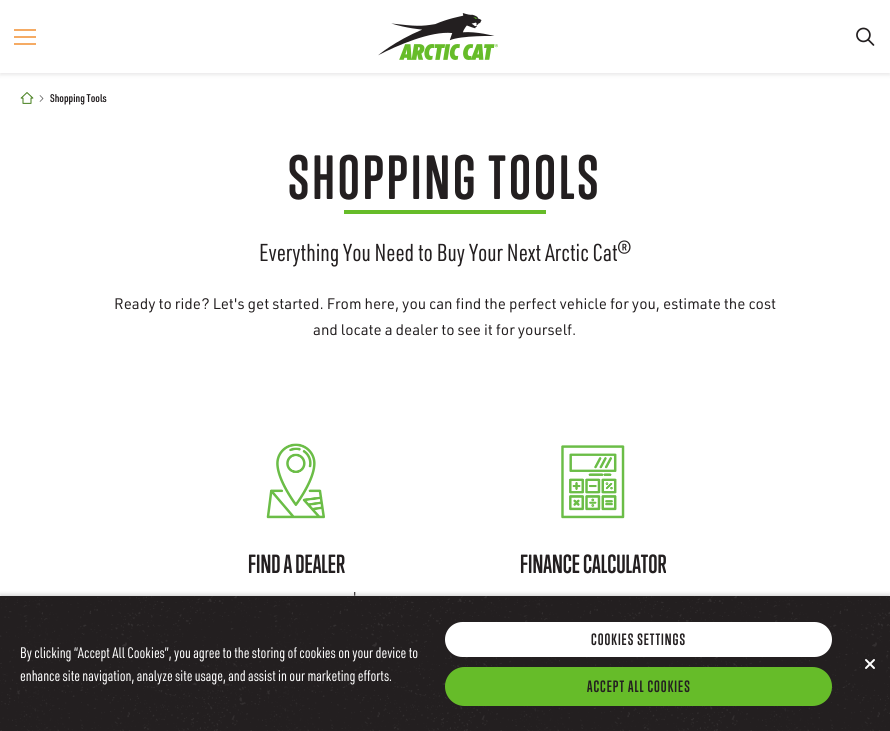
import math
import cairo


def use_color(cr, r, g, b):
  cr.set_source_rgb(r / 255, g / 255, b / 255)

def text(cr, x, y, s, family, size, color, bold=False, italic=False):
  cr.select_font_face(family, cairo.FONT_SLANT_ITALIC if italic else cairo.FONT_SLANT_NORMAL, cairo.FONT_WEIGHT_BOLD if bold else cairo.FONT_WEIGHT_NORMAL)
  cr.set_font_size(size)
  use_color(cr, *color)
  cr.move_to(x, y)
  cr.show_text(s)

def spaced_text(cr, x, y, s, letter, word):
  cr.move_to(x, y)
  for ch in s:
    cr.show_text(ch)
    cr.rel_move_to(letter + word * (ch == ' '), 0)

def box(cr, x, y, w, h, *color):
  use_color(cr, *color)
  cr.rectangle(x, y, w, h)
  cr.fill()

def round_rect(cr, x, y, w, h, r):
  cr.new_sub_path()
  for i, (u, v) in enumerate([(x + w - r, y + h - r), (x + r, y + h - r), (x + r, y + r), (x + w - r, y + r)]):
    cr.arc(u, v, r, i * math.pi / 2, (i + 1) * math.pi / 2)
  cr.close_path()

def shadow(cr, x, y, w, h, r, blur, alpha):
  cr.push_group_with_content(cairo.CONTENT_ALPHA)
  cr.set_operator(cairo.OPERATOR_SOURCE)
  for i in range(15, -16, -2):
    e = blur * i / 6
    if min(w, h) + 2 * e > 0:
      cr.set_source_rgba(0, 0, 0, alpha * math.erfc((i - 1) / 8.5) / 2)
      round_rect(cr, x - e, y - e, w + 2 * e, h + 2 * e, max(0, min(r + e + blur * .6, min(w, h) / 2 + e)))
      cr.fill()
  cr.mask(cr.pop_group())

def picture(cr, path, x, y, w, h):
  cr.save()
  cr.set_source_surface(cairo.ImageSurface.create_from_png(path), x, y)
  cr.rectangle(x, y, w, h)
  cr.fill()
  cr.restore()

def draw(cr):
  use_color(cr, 255, 255, 255)
  cr.paint()
  use_color(cr, 35, 31, 32)
  shadow(cr, 0, 2, 890, 73, 0, 2, 0.1)
  box(cr, 0, 0, 890, 73, 255, 255, 255)
  cr.save()
  cr.rectangle(14, 26, 22, 22)
  cr.clip()
  cr.new_path()
  cr.move_to(14, 44)
  cr.line_to(36, 44)
  cr.move_to(14, 37)
  cr.line_to(36, 37)
  cr.move_to(14, 30)
  cr.line_to(36, 30)
  use_color(cr, 242, 141, 43)
  cr.set_line_width(1.5)
  cr.set_line_cap(cairo.LINE_CAP_ROUND)
  cr.stroke()
  cr.restore()
  picture(cr, "img_01.png", 378, 13, 120, 47)
  picture(cr, "img_02.png", 856, 27, 19, 19)
  picture(cr, "img_03.png", 20, 92, 14, 12)
  cr.new_path()
  cr.move_to(40, 95.5)
  cr.line_to(43, 98.5)
  cr.line_to(40, 101.5)
  use_color(cr, 51, 51, 51)
  cr.set_line_width(0.6)
  cr.set_line_cap(cairo.LINE_CAP_ROUND)
  cr.stroke()
  box(cr, 344, 210, 202, 4, 102, 188, 41)
  picture(cr, "img_04.png", 266, 443, 59, 76)
  picture(cr, "img_05.png", 561, 445, 64, 74)
  use_color(cr, 0, 0, 0)
  shadow(cr, 0, 594, 890, 135, 0, 2, 0.15)
  box(cr, 0, 596, 890, 135, 35, 31, 32)
  picture(cr, "img_06.png", 0, 596, 890, 135)
  use_color(cr, 255, 255, 255)
  round_rect(cr, 445, 622, 387, 35, 17.5)
  cr.fill()
  use_color(cr, 102, 188, 41)
  round_rect(cr, 446, 668, 385, 37, 18.5)
  cr.fill_preserve()
  cr.set_line_width(2)
  cr.set_line_cap(cairo.LINE_CAP_BUTT)
  cr.stroke()
  cr.new_path()
  cr.move_to(866, 660)
  cr.line_to(874, 668)
  cr.move_to(874, 660)
  cr.line_to(866, 668)
  use_color(cr, 255, 255, 255)
  cr.set_line_cap(cairo.LINE_CAP_ROUND)
  cr.stroke()
  text(cr, 50, 102, "Shopping Tools", "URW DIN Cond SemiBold", 11, (35, 31, 32))
  cr.select_font_face("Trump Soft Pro", cairo.FONT_SLANT_NORMAL, cairo.FONT_WEIGHT_BOLD)
  cr.set_font_size(57)
  spaced_text(cr, 288, 199, "SHOPPING TOOLS", 3, 0)
  text(cr, 259, 261, "Everything You Need to Buy Your Next Arctic Cat®", "URW DIN Cond", 24, (35, 31, 32))
  text(cr, 114, 309, "Ready to ride? Let's get started. From here, you can find the perfect vehicle for you, estimate the cost", "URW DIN", 15, (35, 31, 32))
  text(cr, 313, 335, "and locate a dealer to see it for yourself.", "URW DIN", 15, (35, 31, 32))
  text(cr, 248, 573, "FIND A DEALER", "Trump Soft Pro", 24, (35, 31, 32), bold=True)
  text(cr, 353, 602, "'", "URW DIN", 14, (35, 31, 32))
  text(cr, 520, 573, "FINANCE CALCULATOR", "Trump Soft Pro", 24, (35, 31, 32), bold=True)
  text(cr, 20, 658, "By clicking “Accept All Cookies”, you agree to the storing of cookies on your device to", "URW DIN Cond", 15, (255, 255, 255))
  text(cr, 20, 681, "enhance site navigation, analyze site usage, and assist in our marketing efforts.", "URW DIN Cond", 15, (255, 255, 255))
  cr.select_font_face("Trump Soft Pro", cairo.FONT_SLANT_NORMAL, cairo.FONT_WEIGHT_BOLD)
  use_color(cr, 35, 31, 32)
  spaced_text(cr, 591, 645, "COOKIES SETTINGS", 1, 0)
  spaced_text(cr, 587, 692, "ACCEPT ALL COOKIES", 1, 0)


surface = cairo.ImageSurface(cairo.FORMAT_RGB24, 890, 731)
cr = cairo.Context(surface)
options = cairo.FontOptions()
options.set_hint_metrics(cairo.HINT_METRICS_OFF)
options.set_hint_style(cairo.HINT_STYLE_NONE)
cr.set_font_options(options)
cr.set_miter_limit(4)
draw(cr)
surface.write_to_png("out.png")
